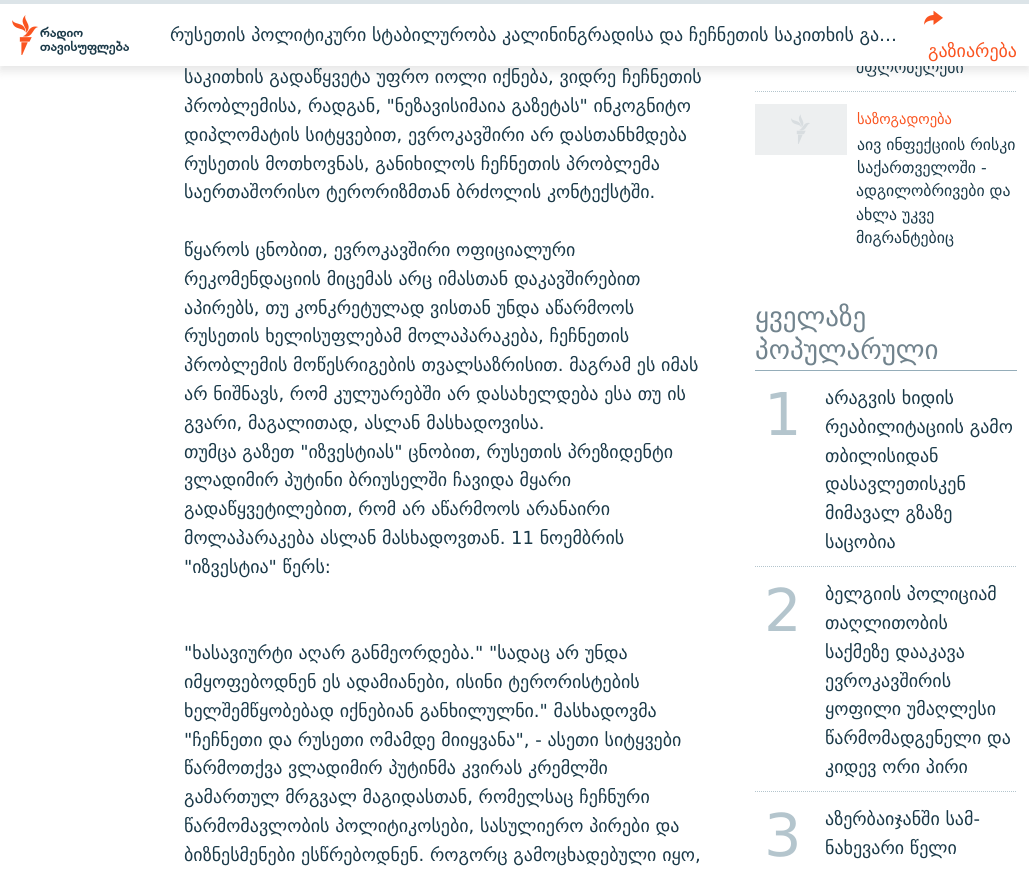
import math
import cairo


def use_color(cr, r, g, b):
  cr.set_source_rgb(r / 255, g / 255, b / 255)

def text(cr, x, y, s, family, size, color, bold=False, italic=False):
  cr.select_font_face(family, cairo.FONT_SLANT_ITALIC if italic else cairo.FONT_SLANT_NORMAL, cairo.FONT_WEIGHT_BOLD if bold else cairo.FONT_WEIGHT_NORMAL)
  cr.set_font_size(size)
  use_color(cr, *color)
  cr.move_to(x, y)
  cr.show_text(s)

def box(cr, x, y, w, h, *color):
  use_color(cr, *color)
  cr.rectangle(x, y, w, h)
  cr.fill()

def round_rect(cr, x, y, w, h, r):
  cr.new_sub_path()
  for i, (u, v) in enumerate([(x + w - r, y + h - r), (x + r, y + h - r), (x + r, y + r), (x + w - r, y + r)]):
    cr.arc(u, v, r, i * math.pi / 2, (i + 1) * math.pi / 2)
  cr.close_path()

def shadow(cr, x, y, w, h, r, blur, alpha):
  cr.push_group_with_content(cairo.CONTENT_ALPHA)
  cr.set_operator(cairo.OPERATOR_SOURCE)
  for i in range(15, -16, -2):
    e = blur * i / 6
    if min(w, h) + 2 * e > 0:
      cr.set_source_rgba(0, 0, 0, alpha * math.erfc((i - 1) / 8.5) / 2)
      round_rect(cr, x - e, y - e, w + 2 * e, h + 2 * e, max(0, min(r + e + blur * .6, min(w, h) / 2 + e)))
      cr.fill()
  cr.mask(cr.pop_group())

def picture(cr, path, x, y, w, h):
  cr.save()
  cr.set_source_surface(cairo.ImageSurface.create_from_png(path), x, y)
  cr.rectangle(x, y, w, h)
  cr.fill()
  cr.restore()

def draw(cr):
  use_color(cr, 255, 255, 255)
  cr.paint()
  use_color(cr, 0, 0, 0)
  shadow(cr, 0, 5, 1029, 66, 0, 5, 0.1)
  box(cr, 0, 0, 1029, 4, 220, 228, 232)
  cr.new_path()
  cr.move_to(755, 91.5)
  cr.line_to(1017, 91.5)
  use_color(cr, 180, 197, 205)
  cr.set_line_width(1)
  cr.set_dash([1, 1])
  cr.stroke()
  box(cr, 755, 104, 92, 51, 237, 239, 240)
  picture(cr, "img_03.png", 791, 114, 19, 30)
  box(cr, 755, 370, 262, 1, 149, 173, 185)
  cr.new_path()
  cr.move_to(755, 566.5)
  cr.line_to(1017, 566.5)
  use_color(cr, 180, 197, 205)
  cr.stroke()
  cr.new_path()
  cr.move_to(755, 791.5)
  cr.line_to(1017, 791.5)
  cr.stroke()
  text(cr, 184, 83, "საკითხის გადაწყვეტა უფრო იოლი იქნება, ვიდრე ჩეჩნეთის", "DejaVu Sans", 18, (26, 57, 72))
  text(cr, 184, 112, "პრობლემისა, რადგან, \"ნეზავისიმაია გაზეტას\" ინკოგნიტო", "DejaVu Sans", 18, (26, 57, 72))
  text(cr, 184, 141, "დიპლომატის სიტყვებით, ევროკავშირი არ დასთანხმდება", "DejaVu Sans", 18, (26, 57, 72))
  text(cr, 184, 170, "რუსეთის მოთხოვნას, განიხილოს ჩეჩნეთის პრობლემა", "DejaVu Sans", 18, (26, 57, 72))
  text(cr, 184, 198, "საერთაშორისო ტერორიზმთან ბრძოლის კონტექსტში.", "DejaVu Sans", 18, (26, 57, 72))
  text(cr, 184, 256, "წყაროს ცნობით, ევროკავშირი ოფიციალური", "DejaVu Sans", 18, (26, 57, 72))
  text(cr, 184, 285, "რეკომენდაციის მიცემას არც იმასთან დაკავშირებით", "DejaVu Sans", 18, (26, 57, 72))
  text(cr, 184, 314, "აპირებს, თუ კონკრეტულად ვისთან უნდა აწარმოოს", "DejaVu Sans", 18, (26, 57, 72))
  text(cr, 184, 342, "რუსეთის ხელისუფლებამ მოლაპარაკება, ჩეჩნეთის", "DejaVu Sans", 18, (26, 57, 72))
  text(cr, 184, 371, "პრობლემის მოწესრიგების თვალსაზრისით. მაგრამ ეს იმას", "DejaVu Sans", 18, (26, 57, 72))
  text(cr, 184, 400, "არ ნიშნავს, რომ კულუარებში არ დასახელდება ესა თუ ის", "DejaVu Sans", 18, (26, 57, 72))
  text(cr, 184, 429, "გვარი, მაგალითად, ასლან მასხადოვისა.", "DejaVu Sans", 18, (26, 57, 72))
  text(cr, 184, 458, "თუმცა გაზეთ \"იზვესტიას\" ცნობით, რუსეთის პრეზიდენტი", "DejaVu Sans", 18, (26, 57, 72))
  text(cr, 184, 486, "ვლადიმირ პუტინი ბრიუსელში ჩავიდა მყარი", "DejaVu Sans", 18, (26, 57, 72))
  text(cr, 184, 515, "გადაწყვეტილებით, რომ არ აწარმოოს არანაირი", "DejaVu Sans", 18, (26, 57, 72))
  text(cr, 184, 544, "მოლაპარაკება ასლან მასხადოვთან. 11 ნოემბრის", "DejaVu Sans", 18, (26, 57, 72))
  text(cr, 184, 573, "\"იზვესტია\" წერს:", "DejaVu Sans", 18, (26, 57, 72))
  text(cr, 184, 659, "\"ხასავიურტი აღარ განმეორდება.\" \"სადაც არ უნდა", "DejaVu Sans", 18, (26, 57, 72))
  text(cr, 184, 688, "იმყოფებოდნენ ეს ადამიანები, ისინი ტერორისტების", "DejaVu Sans", 18, (26, 57, 72))
  text(cr, 184, 717, "ხელშემწყობებად იქნებიან განხილულნი.\" მასხადოვმა", "DejaVu Sans", 18, (26, 57, 72))
  text(cr, 184, 746, "\"ჩეჩნეთი და რუსეთი ომამდე მიიყვანა\", - ასეთი სიტყვები", "DejaVu Sans", 18, (26, 57, 72))
  text(cr, 184, 774, "წარმოთქვა ვლადიმირ პუტინმა კვირას კრემლში", "DejaVu Sans", 18, (26, 57, 72))
  text(cr, 184, 803, "გამართულ მრგვალ მაგიდასთან, რომელსაც ჩეჩნური", "DejaVu Sans", 18, (26, 57, 72))
  text(cr, 184, 832, "წარმომავლობის პოლიტიკოსები, სასულიერო პირები და", "DejaVu Sans", 18, (26, 57, 72))
  text(cr, 184, 861, "ბიზნესმენები ესწრებოდნენ. როგორც გამოცხადებული იყო,", "DejaVu Sans", 18, (26, 57, 72))
  text(cr, 856, 73, "მფლობელები", "DejaVu Sans", 15.75, (26, 57, 72))
  box(cr, 0, 4, 1029, 62, 255, 255, 255)
  text(cr, 170, 41, "რუსეთის პოლიტიკური სტაბილურობა კალინინგრადისა და ჩეჩნეთის საკითხის გა…", "DejaVu Sans", 18, (26, 57, 72))
  text(cr, 928, 57, "გაზიარება", "DejaVu Sans", 18, (250, 84, 32))
  picture(cr, "img_02.png", 924, 10, 19, 15)
  picture(cr, "img_01.png", 12, 15, 117, 40)
  text(cr, 857, 124, "საზოგადოება", "DejaVu Sans", 14.5, (250, 84, 32))
  text(cr, 857, 150, "აივ ინფექციის რისკი", "DejaVu Sans", 15.75, (26, 57, 72))
  text(cr, 857, 173, "საქართველოში -", "DejaVu Sans", 15.75, (26, 57, 72))
  text(cr, 856, 196, "ადგილობრივები და", "DejaVu Sans", 15.75, (26, 57, 72))
  text(cr, 856, 220, "ახლა უკვე", "DejaVu Sans", 15.75, (26, 57, 72))
  text(cr, 856, 243, "მიგრანტებიც", "DejaVu Sans", 15.75, (26, 57, 72))
  text(cr, 755, 326, "ყველაზე", "DejaVu Sans", 27, (113, 131, 141))
  text(cr, 755, 359, "პოპულარული", "DejaVu Sans", 27, (113, 131, 141))
  text(cr, 764, 435, "1", "DejaVu Sans", 59, (180, 197, 205))
  text(cr, 825, 404, "არაგვის ხიდის", "DejaVu Sans", 18, (26, 57, 72))
  text(cr, 825, 433, "რეაბილიტაციის გამო", "DejaVu Sans", 18, (26, 57, 72))
  text(cr, 825, 462, "თბილისიდან", "DejaVu Sans", 18, (26, 57, 72))
  text(cr, 825, 490, "დასავლეთისკენ", "DejaVu Sans", 18, (26, 57, 72))
  text(cr, 825, 519, "მიმავალ გზაზე", "DejaVu Sans", 18, (26, 57, 72))
  text(cr, 825, 548, "საცობია", "DejaVu Sans", 18, (26, 57, 72))
  text(cr, 764, 631, "2", "DejaVu Sans", 59, (180, 197, 205))
  text(cr, 825, 600, "ბელგიის პოლიციამ", "DejaVu Sans", 18, (26, 57, 72))
  text(cr, 825, 629, "თაღლითობის", "DejaVu Sans", 18, (26, 57, 72))
  text(cr, 825, 658, "საქმეზე დააკავა", "DejaVu Sans", 18, (26, 57, 72))
  text(cr, 825, 687, "ევროკავშირის", "DejaVu Sans", 18, (26, 57, 72))
  text(cr, 825, 715, "ყოფილი უმაღლესი", "DejaVu Sans", 18, (26, 57, 72))
  text(cr, 825, 744, "წარმომადგენელი და", "DejaVu Sans", 18, (26, 57, 72))
  text(cr, 825, 773, "კიდევ ორი პირი", "DejaVu Sans", 18, (26, 57, 72))
  text(cr, 764, 856, "3", "DejaVu Sans", 59, (180, 197, 205))
  text(cr, 825, 825, "აზერბაიჯანში სამ-", "DejaVu Sans", 18, (26, 57, 72))
  text(cr, 825, 854, "ნახევარი წელი", "DejaVu Sans", 18, (26, 57, 72))


surface = cairo.ImageSurface(cairo.FORMAT_RGB24, 1029, 871)
cr = cairo.Context(surface)
options = cairo.FontOptions()
options.set_hint_metrics(cairo.HINT_METRICS_OFF)
options.set_hint_style(cairo.HINT_STYLE_NONE)
cr.set_font_options(options)
cr.set_miter_limit(4)
draw(cr)
surface.write_to_png("out.png")
